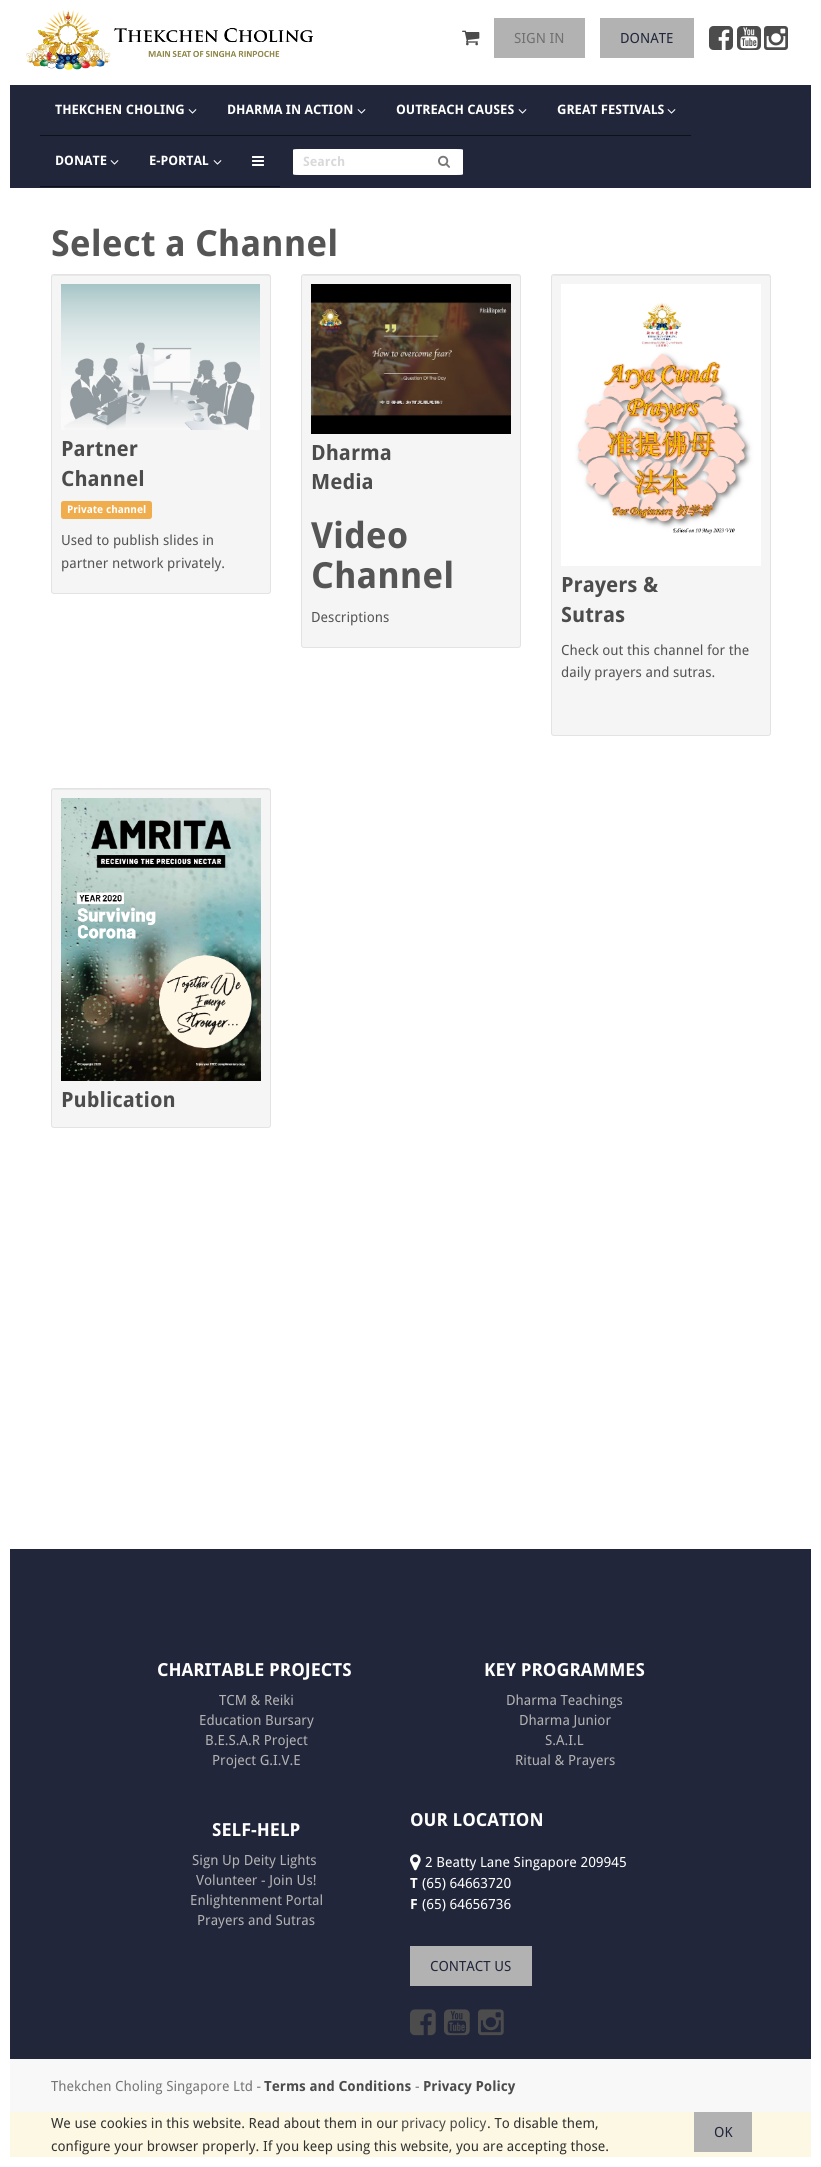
import math
import cairo


def use_color(cr, r, g, b):
  cr.set_source_rgb(r / 255, g / 255, b / 255)

def text(cr, x, y, s, family, size, color, bold=False, italic=False):
  cr.select_font_face(family, cairo.FONT_SLANT_ITALIC if italic else cairo.FONT_SLANT_NORMAL, cairo.FONT_WEIGHT_BOLD if bold else cairo.FONT_WEIGHT_NORMAL)
  cr.set_font_size(size)
  use_color(cr, *color)
  cr.move_to(x, y)
  cr.show_text(s)

def box(cr, x, y, w, h, *color):
  use_color(cr, *color)
  cr.rectangle(x, y, w, h)
  cr.fill()

def round_rect(cr, x, y, w, h, r):
  cr.new_sub_path()
  for i, (u, v) in enumerate([(x + w - r, y + h - r), (x + r, y + h - r), (x + r, y + r), (x + w - r, y + r)]):
    cr.arc(u, v, r, i * math.pi / 2, (i + 1) * math.pi / 2)
  cr.close_path()

def picture(cr, path, x, y, w, h):
  cr.save()
  cr.set_source_surface(cairo.ImageSurface.create_from_png(path), x, y)
  cr.rectangle(x, y, w, h)
  cr.fill()
  cr.restore()

def draw(cr):
  use_color(cr, 255, 255, 255)
  cr.paint()
  picture(cr, "img_01.png", 26, 10, 288, 60)
  picture(cr, "img_02.png", 462, 30, 18, 16)
  box(cr, 494, 18, 91, 40, 178, 178, 178)
  box(cr, 600, 18, 94, 40, 178, 178, 178)
  picture(cr, "img_03.png", 709, 26, 24, 24)
  picture(cr, "img_04.png", 737, 26, 24, 24)
  picture(cr, "img_05.png", 764, 26, 24, 24)
  box(cr, 10, 85, 801, 103, 33, 38, 58)
  box(cr, 40, 135, 651, 1, 15, 17, 25)
  picture(cr, "img_06.png", 188, 109, 9, 5)
  picture(cr, "img_06.png", 357, 109, 9, 5)
  picture(cr, "img_06.png", 518, 109, 9, 5)
  picture(cr, "img_06.png", 667, 109, 9, 5)
  box(cr, 40, 186, 240, 1, 15, 17, 25)
  picture(cr, "img_06.png", 110, 160, 9, 5)
  picture(cr, "img_06.png", 213, 160, 9, 5)
  picture(cr, "img_07.png", 252, 156, 12, 10)
  use_color(cr, 255, 255, 255)
  cr.new_path()
  cr.move_to(300, 149)
  cr.line_to(456, 149)
  cr.curve_to(460, 149, 463, 149, 463, 150)
  cr.line_to(463, 174)
  cr.curve_to(463, 175, 460, 175, 456, 175)
  cr.line_to(300, 175)
  cr.curve_to(296, 175, 293, 175, 293, 174)
  cr.line_to(293, 150)
  cr.curve_to(293, 149, 296, 149, 300, 149)
  cr.close_path()
  cr.fill()
  picture(cr, "img_08.png", 438, 155, 12, 13)
  use_color(cr, 245, 245, 245)
  round_rect(cr, 51, 274, 220, 320, 3)
  cr.fill()
  use_color(cr, 233, 233, 233)
  cr.new_path()
  cr.move_to(54, 276)
  cr.line_to(268, 276)
  cr.curve_to(269, 276, 270, 277, 270, 278)
  cr.curve_to(270, 277, 270, 275, 268, 275)
  cr.line_to(54, 275)
  cr.line_to(53, 276)
  cr.line_to(52, 278)
  cr.curve_to(52, 277, 53, 276, 54, 276)
  cr.close_path()
  cr.fill()
  round_rect(cr, 51.5, 274.5, 219, 319, 2.5)
  use_color(cr, 227, 227, 227)
  cr.set_line_width(1)
  cr.stroke()
  picture(cr, "img_09.png", 61, 284, 199, 146)
  use_color(cr, 240, 173, 78)
  round_rect(cr, 61, 501, 91, 18, 2.5)
  cr.fill()
  use_color(cr, 245, 245, 245)
  round_rect(cr, 301, 274, 220, 374, 3)
  cr.fill()
  use_color(cr, 233, 233, 233)
  cr.new_path()
  cr.move_to(304, 276)
  cr.line_to(518, 276)
  cr.curve_to(519, 276, 520, 277, 520, 278)
  cr.curve_to(520, 277, 520, 275, 518, 275)
  cr.line_to(304, 275)
  cr.line_to(303, 276)
  cr.line_to(302, 278)
  cr.curve_to(302, 277, 303, 276, 304, 276)
  cr.close_path()
  cr.fill()
  round_rect(cr, 301.5, 274.5, 219, 373, 2.5)
  use_color(cr, 227, 227, 227)
  cr.stroke()
  picture(cr, "img_10.png", 311, 284, 200, 150)
  use_color(cr, 245, 245, 245)
  round_rect(cr, 551, 274, 220, 462, 3)
  cr.fill()
  use_color(cr, 233, 233, 233)
  cr.new_path()
  cr.move_to(554, 276)
  cr.line_to(768, 276)
  cr.curve_to(769, 276, 770, 277, 770, 278)
  cr.curve_to(770, 277, 770, 275, 768, 275)
  cr.line_to(554, 275)
  cr.line_to(553, 276)
  cr.line_to(552, 278)
  cr.curve_to(552, 277, 553, 276, 554, 276)
  cr.close_path()
  cr.fill()
  round_rect(cr, 551.5, 274.5, 219, 461, 2.5)
  use_color(cr, 227, 227, 227)
  cr.stroke()
  picture(cr, "img_11.png", 561, 284, 200, 282)
  use_color(cr, 245, 245, 245)
  round_rect(cr, 51, 788, 220, 340, 3)
  cr.fill()
  use_color(cr, 233, 233, 233)
  cr.new_path()
  cr.move_to(54, 790)
  cr.line_to(268, 790)
  cr.curve_to(269, 790, 270, 791, 270, 792)
  cr.curve_to(270, 791, 270, 789, 268, 789)
  cr.line_to(54, 789)
  cr.line_to(53, 790)
  cr.line_to(52, 792)
  cr.curve_to(52, 791, 53, 790, 54, 790)
  cr.close_path()
  cr.fill()
  round_rect(cr, 51.5, 788.5, 219, 339, 2.5)
  use_color(cr, 227, 227, 227)
  cr.stroke()
  picture(cr, "img_12.png", 61, 798, 200, 283)
  box(cr, 10, 2059, 801, 53, 248, 248, 248)
  box(cr, 10, 1549, 801, 510, 33, 38, 58)
  picture(cr, "img_13.png", 410, 1854, 11, 17)
  box(cr, 410, 1946, 122, 40, 178, 178, 178)
  picture(cr, "img_14.png", 410, 2009, 26, 27)
  picture(cr, "img_15.png", 444, 2009, 26, 27)
  picture(cr, "img_16.png", 478, 2009, 26, 27)
  box(cr, 10, 2112, 801, 45, 252, 248, 227)
  box(cr, 694, 2112, 58, 40, 178, 178, 178)
  text(cr, 514, 43, "SIGN IN", "Droid Sans", 14, (112, 112, 112))
  text(cr, 620, 43, "DONATE", "Droid Sans", 14, (33, 38, 58))
  text(cr, 55, 114, "THEKCHEN CHOLING", "Droid Sans", 13, (255, 255, 255), bold=True)
  text(cr, 227, 114, "DHARMA IN ACTION", "Droid Sans", 13, (255, 255, 255), bold=True)
  text(cr, 396, 114, "OUTREACH CAUSES", "Droid Sans", 13, (255, 255, 255), bold=True)
  text(cr, 557, 114, "GREAT FESTIVALS", "Droid Sans", 13, (255, 255, 255), bold=True)
  text(cr, 55, 165, "DONATE", "Droid Sans", 13, (255, 255, 255), bold=True)
  text(cr, 149, 165, "E-PORTAL", "Droid Sans", 13, (255, 255, 255), bold=True)
  text(cr, 303, 166, "Search", "Droid Sans", 13, (217, 217, 217), bold=True)
  text(cr, 51, 256, "Select a Channel", "Droid Sans", 36, (85, 85, 85), bold=True)
  text(cr, 61, 456, "Partner", "Droid Sans", 21, (76, 76, 76), bold=True)
  text(cr, 61, 486, "Channel", "Droid Sans", 21, (76, 76, 76), bold=True)
  text(cr, 67, 513, "Private channel", "Droid Sans", 10.5, (255, 255, 255), bold=True)
  text(cr, 61, 545, "Used to publish slides in", "Droid Sans", 14, (85, 85, 85))
  text(cr, 61, 568, "partner network privately.", "Droid Sans", 14, (85, 85, 85))
  text(cr, 311, 460, "Dharma", "Droid Sans", 21, (76, 76, 76), bold=True)
  text(cr, 311, 489, "Media", "Droid Sans", 21, (76, 76, 76), bold=True)
  text(cr, 311, 548, "Video", "Droid Sans", 36, (85, 85, 85), bold=True)
  text(cr, 311, 588, "Channel", "Droid Sans", 36, (85, 85, 85), bold=True)
  text(cr, 311, 622, "Descriptions", "Droid Sans", 14, (85, 85, 85))
  text(cr, 561, 592, "Prayers &", "Droid Sans", 21, (76, 76, 76), bold=True)
  text(cr, 561, 622, "Sutras", "Droid Sans", 21, (76, 76, 76), bold=True)
  text(cr, 561, 655, "Check out this channel for the", "Droid Sans", 14, (85, 85, 85))
  text(cr, 561, 677, "daily prayers and sutras.", "Droid Sans", 14, (85, 85, 85))
  text(cr, 61, 1107, "Publication", "Droid Sans", 21, (76, 76, 76), bold=True)
  text(cr, 157, 1676, "CHARITABLE PROJECTS", "Droid Sans", 18, (255, 255, 255), bold=True)
  text(cr, 219, 1705, "TCM & Reiki", "Droid Sans", 14, (178, 178, 178))
  text(cr, 199, 1725, "Education Bursary", "Droid Sans", 14, (178, 178, 178))
  text(cr, 205, 1745, "B.E.S.A.R Project", "Droid Sans", 14, (178, 178, 178))
  text(cr, 212, 1765, "Project G.I.V.E", "Droid Sans", 14, (178, 178, 178))
  text(cr, 484, 1676, "KEY PROGRAMMES", "Droid Sans", 18, (255, 255, 255), bold=True)
  text(cr, 506, 1705, "Dharma Teachings", "Droid Sans", 14, (178, 178, 178))
  text(cr, 519, 1725, "Dharma Junior", "Droid Sans", 14, (178, 178, 178))
  text(cr, 545, 1745, "S.A.I.L", "Droid Sans", 14, (178, 178, 178))
  text(cr, 515, 1765, "Ritual & Prayers", "Droid Sans", 14, (178, 178, 178))
  text(cr, 212, 1836, "SELF-HELP", "Droid Sans", 18, (255, 255, 255), bold=True)
  text(cr, 192, 1865, "Sign Up Deity Lights", "Droid Sans", 14, (178, 178, 178))
  text(cr, 196, 1885, "Volunteer - Join Us!", "Droid Sans", 14, (178, 178, 178))
  text(cr, 190, 1905, "Enlightenment Portal", "Droid Sans", 14, (178, 178, 178))
  text(cr, 197, 1925, "Prayers and Sutras", "Droid Sans", 14, (178, 178, 178))
  text(cr, 410, 1826, "OUR LOCATION", "Droid Sans", 18, (255, 255, 255), bold=True)
  text(cr, 425, 1867, "2 Beatty Lane Singapore 209945", "Droid Sans", 14, (255, 255, 255))
  text(cr, 410, 1888, "T", "Droid Sans", 14, (255, 255, 255), bold=True)
  text(cr, 422, 1888, "(65) 64663720", "Droid Sans", 14, (255, 255, 255))
  text(cr, 410, 1909, "F", "Droid Sans", 14, (255, 255, 255), bold=True)
  text(cr, 422, 1909, "(65) 64656736", "Droid Sans", 14, (255, 255, 255))
  text(cr, 430, 1971, "CONTACT US", "Droid Sans", 14, (33, 38, 58))
  text(cr, 51, 2091, "Thekchen Choling Singapore Ltd -", "Droid Sans", 14, (119, 119, 119))
  text(cr, 264, 2091, "Terms and Conditions", "Droid Sans", 14, (76, 76, 76), bold=True)
  text(cr, 415, 2091, "-", "Droid Sans", 14, (119, 119, 119))
  text(cr, 423, 2091, "Privacy Policy", "Droid Sans", 14, (76, 76, 76), bold=True)
  text(cr, 51, 2128, "We use cookies in this website. Read about them in our", "Droid Sans", 14, (51, 51, 51))
  text(cr, 401, 2128, "privacy policy", "Droid Sans", 14, (76, 76, 76))
  text(cr, 487, 2128, ". To disable them,", "Droid Sans", 14, (51, 51, 51))
  text(cr, 51, 2151, "configure your browser properly. If you keep using this website, you are accepting those.", "Droid Sans", 14, (51, 51, 51))
  text(cr, 714, 2137, "OK", "Droid Sans", 14, (33, 38, 58))


surface = cairo.ImageSurface(cairo.FORMAT_RGB24, 821, 2167)
cr = cairo.Context(surface)
options = cairo.FontOptions()
options.set_hint_metrics(cairo.HINT_METRICS_OFF)
options.set_hint_style(cairo.HINT_STYLE_NONE)
cr.set_font_options(options)
cr.set_miter_limit(4)
draw(cr)
surface.write_to_png("out.png")
